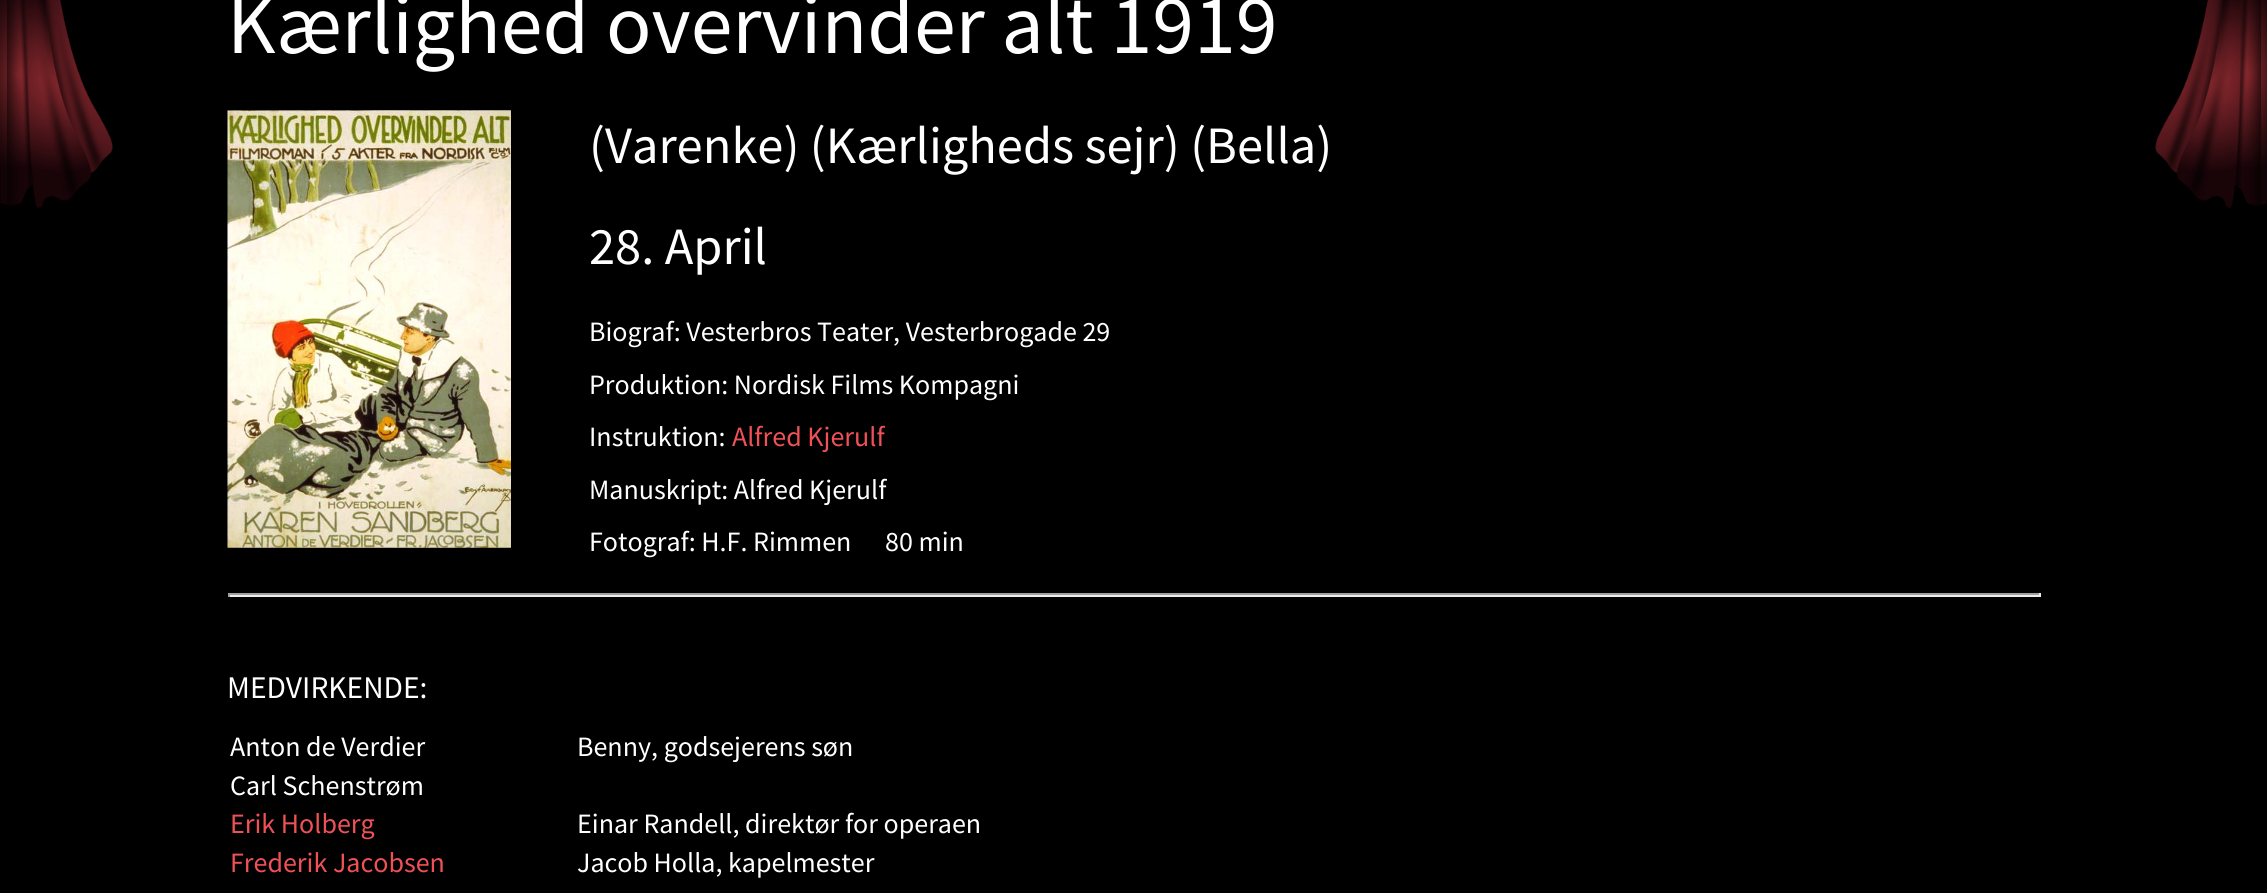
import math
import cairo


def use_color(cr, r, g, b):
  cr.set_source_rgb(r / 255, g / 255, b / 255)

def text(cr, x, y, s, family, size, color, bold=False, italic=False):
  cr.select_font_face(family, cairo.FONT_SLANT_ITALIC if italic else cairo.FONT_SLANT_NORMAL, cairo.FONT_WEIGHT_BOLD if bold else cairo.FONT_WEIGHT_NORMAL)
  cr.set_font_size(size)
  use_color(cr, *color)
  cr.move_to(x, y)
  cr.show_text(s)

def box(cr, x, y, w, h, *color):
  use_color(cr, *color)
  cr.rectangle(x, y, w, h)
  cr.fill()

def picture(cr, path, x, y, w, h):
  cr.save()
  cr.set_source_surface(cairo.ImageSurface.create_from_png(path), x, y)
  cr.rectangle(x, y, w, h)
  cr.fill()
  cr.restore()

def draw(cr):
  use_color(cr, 0, 0, 0)
  cr.paint()
  picture(cr, "img_01.png", 0, 0, 113, 208)
  picture(cr, "img_02.png", 227, 110, 284, 438)
  box(cr, 228, 593, 1813, 2, 159, 159, 159)
  box(cr, 2039, 593, 2, 4, 238, 238, 238)
  box(cr, 228, 595, 1813, 2, 238, 238, 238)
  box(cr, 228, 593, 2, 4, 159, 159, 159)
  picture(cr, "img_03.png", 2155, 0, 112, 208)
  text(cr, 227, 53, "Kærlighed overvinder alt 1919", "Source Sans Pro", 84, (255, 255, 255))
  text(cr, 589, 163, "(Varenke) (Kærligheds sejr) (Bella)", "Source Sans Pro", 52.5, (255, 255, 255))
  text(cr, 589, 264, "28. April", "Source Sans Pro", 52.5, (255, 255, 255))
  text(cr, 589, 341, "Biograf: Vesterbros Teater, Vesterbrogade 29", "Source Sans Pro", 28, (255, 255, 255))
  text(cr, 589, 394, "Produktion: Nordisk Films Kompagni", "Source Sans Pro", 28, (255, 255, 255))
  text(cr, 589, 446, "Instruktion:", "Source Sans Pro", 28, (255, 255, 255))
  text(cr, 732, 446, "Alfred Kjerulf", "Source Sans Pro", 28, (239, 81, 87))
  text(cr, 589, 499, "Manuskript: Alfred Kjerulf", "Source Sans Pro", 28, (255, 255, 255))
  text(cr, 589, 551, "Fotograf: H.F. Rimmen      80 min", "Source Sans Pro", 28, (255, 255, 255))
  text(cr, 227, 698, "MEDVIRKENDE:", "Source Sans Pro", 31.5, (255, 255, 255))
  text(cr, 230, 756, "Anton de Verdier", "Source Sans Pro", 28, (255, 255, 255))
  text(cr, 577, 756, "Benny, godsejerens søn", "Source Sans Pro", 28, (255, 255, 255))
  text(cr, 230, 795, "Carl Schenstrøm", "Source Sans Pro", 28, (255, 255, 255))
  text(cr, 230, 833, "Erik Holberg", "Source Sans Pro", 28, (239, 81, 87))
  text(cr, 577, 833, "Einar Randell, direktør for operaen", "Source Sans Pro", 28, (255, 255, 255))
  text(cr, 230, 872, "Frederik Jacobsen", "Source Sans Pro", 28, (239, 81, 87))
  text(cr, 577, 872, "Jacob Holla, kapelmester", "Source Sans Pro", 28, (255, 255, 255))


surface = cairo.ImageSurface(cairo.FORMAT_RGB24, 2267, 893)
cr = cairo.Context(surface)
options = cairo.FontOptions()
options.set_hint_metrics(cairo.HINT_METRICS_OFF)
options.set_hint_style(cairo.HINT_STYLE_NONE)
cr.set_font_options(options)
cr.set_miter_limit(4)
draw(cr)
surface.write_to_png("out.png")
